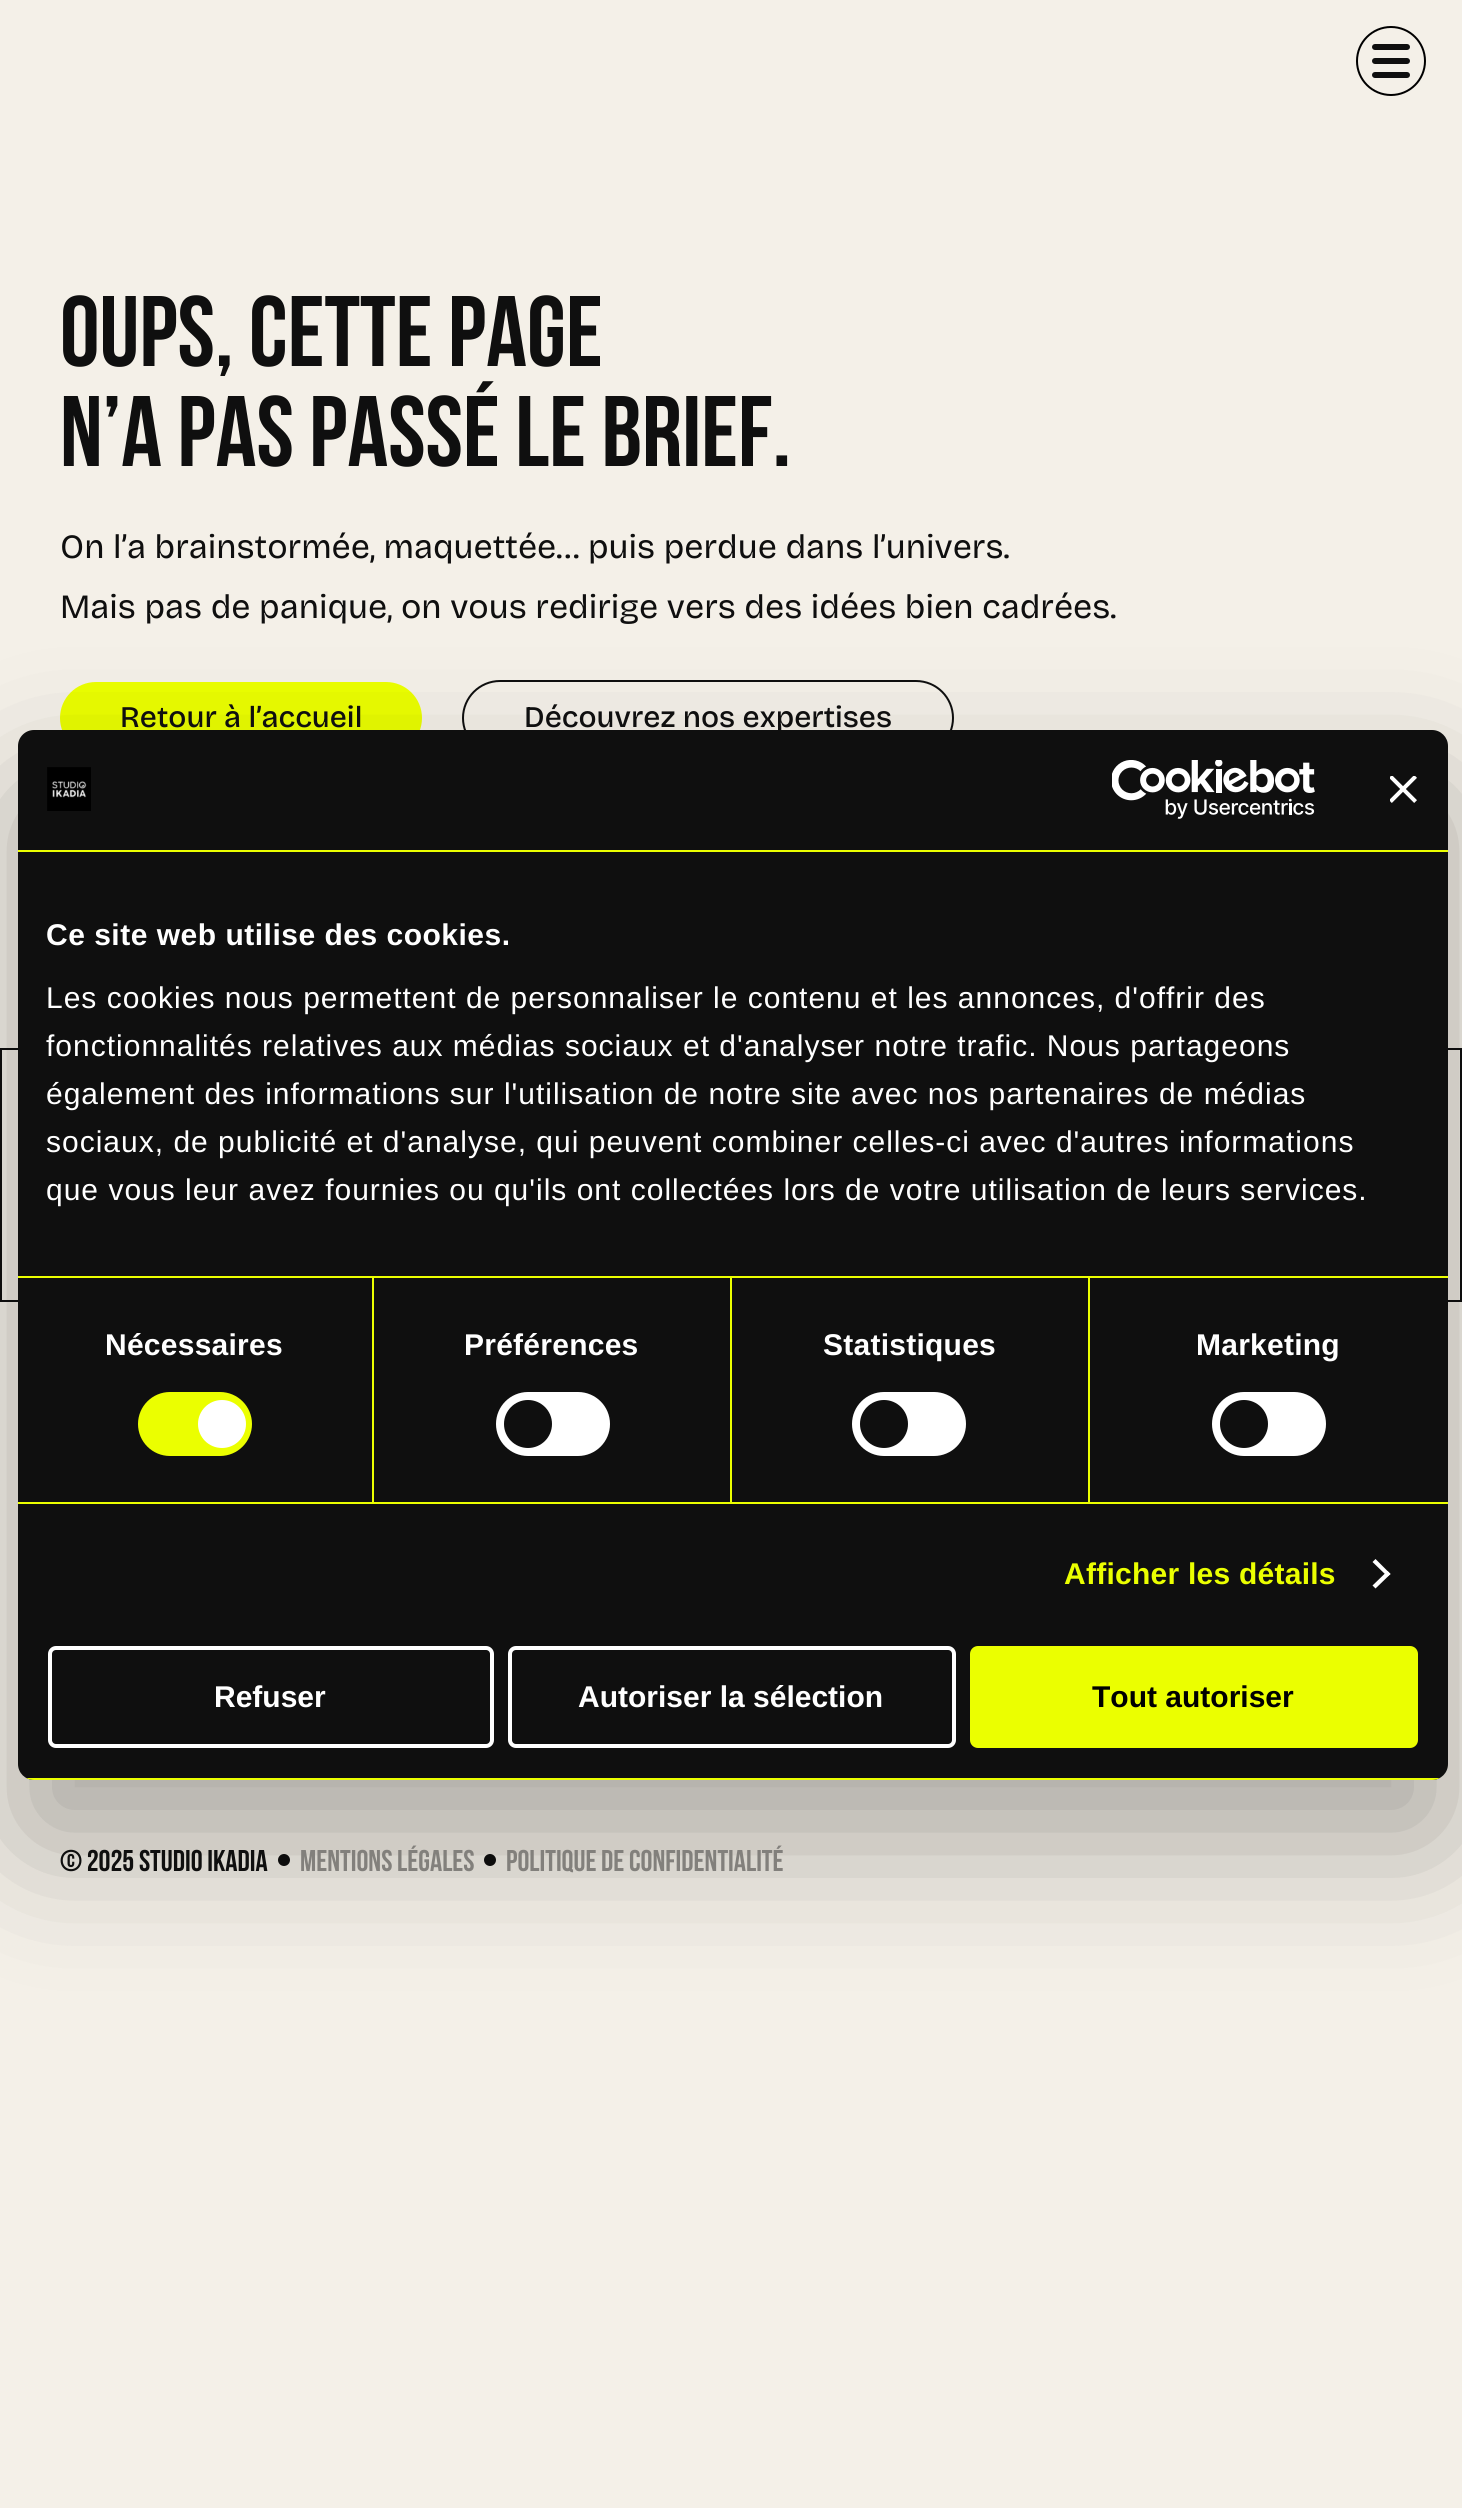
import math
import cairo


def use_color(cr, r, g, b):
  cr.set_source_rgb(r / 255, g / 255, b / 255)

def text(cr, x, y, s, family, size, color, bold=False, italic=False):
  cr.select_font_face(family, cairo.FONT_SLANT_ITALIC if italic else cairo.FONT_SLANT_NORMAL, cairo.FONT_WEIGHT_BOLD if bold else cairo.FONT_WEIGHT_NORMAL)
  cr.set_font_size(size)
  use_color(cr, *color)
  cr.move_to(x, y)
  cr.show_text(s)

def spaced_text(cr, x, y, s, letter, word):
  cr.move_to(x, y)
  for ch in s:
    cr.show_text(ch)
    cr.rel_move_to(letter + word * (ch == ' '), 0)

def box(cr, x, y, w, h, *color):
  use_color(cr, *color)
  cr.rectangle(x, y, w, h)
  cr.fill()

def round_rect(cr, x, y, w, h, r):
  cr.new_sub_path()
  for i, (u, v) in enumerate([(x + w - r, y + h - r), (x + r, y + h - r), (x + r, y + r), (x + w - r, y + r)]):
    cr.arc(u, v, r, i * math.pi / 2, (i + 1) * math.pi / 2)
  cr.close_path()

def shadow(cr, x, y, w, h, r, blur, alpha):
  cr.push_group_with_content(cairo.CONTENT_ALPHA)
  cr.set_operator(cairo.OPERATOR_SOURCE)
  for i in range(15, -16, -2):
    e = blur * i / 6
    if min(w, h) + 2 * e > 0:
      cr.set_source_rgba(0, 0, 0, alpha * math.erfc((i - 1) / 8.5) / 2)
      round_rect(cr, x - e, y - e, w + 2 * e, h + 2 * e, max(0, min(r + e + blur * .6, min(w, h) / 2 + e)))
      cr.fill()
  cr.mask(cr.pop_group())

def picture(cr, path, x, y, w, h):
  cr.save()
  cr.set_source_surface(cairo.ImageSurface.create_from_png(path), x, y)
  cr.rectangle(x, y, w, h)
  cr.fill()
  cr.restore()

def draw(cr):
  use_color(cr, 244, 240, 232)
  cr.paint()
  cr.arc(1391, 61, 34, 0, 2 * math.pi)
  use_color(cr, 0, 0, 0)
  cr.stroke()
  use_color(cr, 15, 15, 15)
  round_rect(cr, 1372, 44, 38, 6, 3)
  cr.fill()
  round_rect(cr, 1372, 58, 38, 6, 3)
  cr.fill()
  round_rect(cr, 1372, 72, 38, 6, 3)
  cr.fill()
  use_color(cr, 235, 255, 0)
  round_rect(cr, 60, 682, 362, 72, 36)
  cr.fill()
  round_rect(cr, 463, 681, 490, 74, 37)
  use_color(cr, 15, 15, 15)
  cr.stroke()
  box(cr, 0, 1048, 1462, 2, 15, 15, 15)
  box(cr, 0, 1300, 1462, 2, 15, 15, 15)
  box(cr, 0, 1050, 2, 250, 15, 15, 15)
  box(cr, 1460, 1050, 2, 250, 15, 15, 15)
  cr.arc(284, 1860, 6, 0, 2 * math.pi)
  cr.fill()
  cr.arc(490, 1860, 6, 0, 2 * math.pi)
  cr.fill()
  use_color(cr, 0, 0, 0)
  shadow(cr, 18, 794, 1430, 1050, 16, 68, 0.3)
  use_color(cr, 15, 15, 15)
  round_rect(cr, 18, 730, 1430, 1050, 16)
  cr.fill()
  box(cr, 18, 850, 1430, 2, 235, 255, 0)
  picture(cr, "img_01.png", 47, 767, 44, 44)
  picture(cr, "img_02.png", 1112, 760, 203, 59)
  picture(cr, "img_03.png", 1390, 776, 27, 27)
  box(cr, 18, 1276, 1430, 2, 235, 255, 0)
  box(cr, 18, 1502, 1430, 2, 235, 255, 0)
  box(cr, 372, 1278, 2, 224, 235, 255, 0)
  round_rect(cr, 138, 1392, 114, 64, 32)
  cr.fill()
  use_color(cr, 255, 255, 255)
  cr.arc(222, 1424, 24, 0, 2 * math.pi)
  cr.fill()
  box(cr, 730, 1278, 2, 224, 235, 255, 0)
  use_color(cr, 255, 255, 255)
  round_rect(cr, 496, 1392, 114, 64, 32)
  cr.fill()
  use_color(cr, 15, 15, 15)
  cr.arc(528, 1424, 24, 0, 2 * math.pi)
  cr.fill()
  box(cr, 1088, 1278, 2, 224, 235, 255, 0)
  use_color(cr, 255, 255, 255)
  round_rect(cr, 852, 1392, 114, 64, 32)
  cr.fill()
  use_color(cr, 15, 15, 15)
  cr.arc(884, 1424, 24, 0, 2 * math.pi)
  cr.fill()
  use_color(cr, 255, 255, 255)
  round_rect(cr, 1212, 1392, 114, 64, 32)
  cr.fill()
  use_color(cr, 15, 15, 15)
  cr.arc(1244, 1424, 24, 0, 2 * math.pi)
  cr.fill()
  use_color(cr, 255, 255, 255)
  cr.new_path()
  cr.move_to(1375.5, 1559)
  cr.line_to(1390.5, 1574)
  cr.line_to(1387.5, 1576.5)
  cr.line_to(1372.5, 1562)
  cr.close_path()
  cr.fill()
  cr.new_path()
  cr.move_to(1387.5, 1571)
  cr.line_to(1390.5, 1574)
  cr.line_to(1375.5, 1588.5)
  cr.line_to(1372.5, 1585.5)
  cr.close_path()
  cr.fill()
  cr.save()
  round_rect(cr, 18, 730, 1430, 1050, 16)
  cr.clip()
  box(cr, 18, 1778, 1430, 2, 235, 255, 0)
  cr.restore()
  round_rect(cr, 50, 1648, 442, 98, 6)
  cr.set_line_width(4)
  cr.stroke()
  round_rect(cr, 510, 1648, 444, 98, 6)
  cr.stroke()
  use_color(cr, 235, 255, 0)
  round_rect(cr, 972, 1648, 444, 98, 6)
  cr.fill_preserve()
  cr.stroke()
  text(cr, 60, 366, "OUPS, CETTE PAGE", "Bebas Neue", 100, (15, 15, 15), bold=True)
  text(cr, 60, 466, "N’A PAS PASSÉ LE BRIEF.", "Bebas Neue", 100, (15, 15, 15), bold=True)
  text(cr, 60, 558, "On l’a brainstormée, maquettée… puis perdue dans l’univers.", "Bricolage Grotesque", 34, (15, 15, 15))
  text(cr, 60, 618, "Mais pas de panique, on vous redirige vers des idées bien cadrées.", "Bricolage Grotesque", 34, (15, 15, 15))
  text(cr, 120, 727, "Retour à l’accueil", "Bricolage Grotesque Medium", 30, (15, 15, 15))
  text(cr, 524, 727, "Découvrez nos expertises", "Bricolage Grotesque Medium", 30, (15, 15, 15))
  cr.select_font_face("Liberation Sans", cairo.FONT_SLANT_NORMAL, cairo.FONT_WEIGHT_BOLD)
  use_color(cr, 255, 255, 255)
  spaced_text(cr, 46, 945, "Ce site web utilise des cookies.", 0.5, 0)
  cr.select_font_face("Liberation Sans")
  spaced_text(cr, 46, 1008, "Les cookies nous permettent de personnaliser le contenu et les annonces, d'offrir des", 1, 0)
  spaced_text(cr, 46, 1056, "fonctionnalités relatives aux médias sociaux et d'analyser notre trafic. Nous partageons", 1, 0)
  spaced_text(cr, 46, 1104, "également des informations sur l'utilisation de notre site avec nos partenaires de médias", 1, 0)
  spaced_text(cr, 46, 1152, "sociaux, de publicité et d'analyse, qui peuvent combiner celles-ci avec d'autres informations", 1, 0)
  spaced_text(cr, 46, 1200, "que vous leur avez fournies ou qu'ils ont collectées lors de votre utilisation de leurs services.", 1, 0)
  cr.select_font_face("Liberation Sans", cairo.FONT_SLANT_NORMAL, cairo.FONT_WEIGHT_BOLD)
  spaced_text(cr, 105, 1355, "Nécessaires", 0.25, 0)
  spaced_text(cr, 464, 1355, "Préférences", 0.25, 0)
  spaced_text(cr, 823, 1355, "Statistiques", 0.25, 0)
  spaced_text(cr, 1196, 1355, "Marketing", 0.25, 0)
  use_color(cr, 235, 255, 0)
  spaced_text(cr, 1064, 1584, "Afficher les détails", 0.25, 0)
  text(cr, 214, 1707, "Refuser", "Liberation Sans", 30, (255, 255, 255), bold=True)
  text(cr, 578, 1707, "Autoriser la sélection", "Liberation Sans", 30, (255, 255, 255), bold=True)
  text(cr, 1092, 1707, "Tout autoriser", "Liberation Sans", 30, (0, 0, 0), bold=True)
  text(cr, 60, 1871, "© 2025 Studio Ikadia", "Bebas Neue", 30, (15, 15, 15), bold=True)
  text(cr, 300, 1871, "Mentions légales", "Bebas Neue", 30, (130, 128, 124), bold=True)
  text(cr, 506, 1871, "Politique de confidentialité", "Bebas Neue", 30, (130, 128, 124), bold=True)


surface = cairo.ImageSurface(cairo.FORMAT_RGB24, 1462, 2508)
cr = cairo.Context(surface)
options = cairo.FontOptions()
options.set_hint_metrics(cairo.HINT_METRICS_OFF)
options.set_hint_style(cairo.HINT_STYLE_NONE)
cr.set_font_options(options)
cr.set_miter_limit(4)
draw(cr)
surface.write_to_png("out.png")
